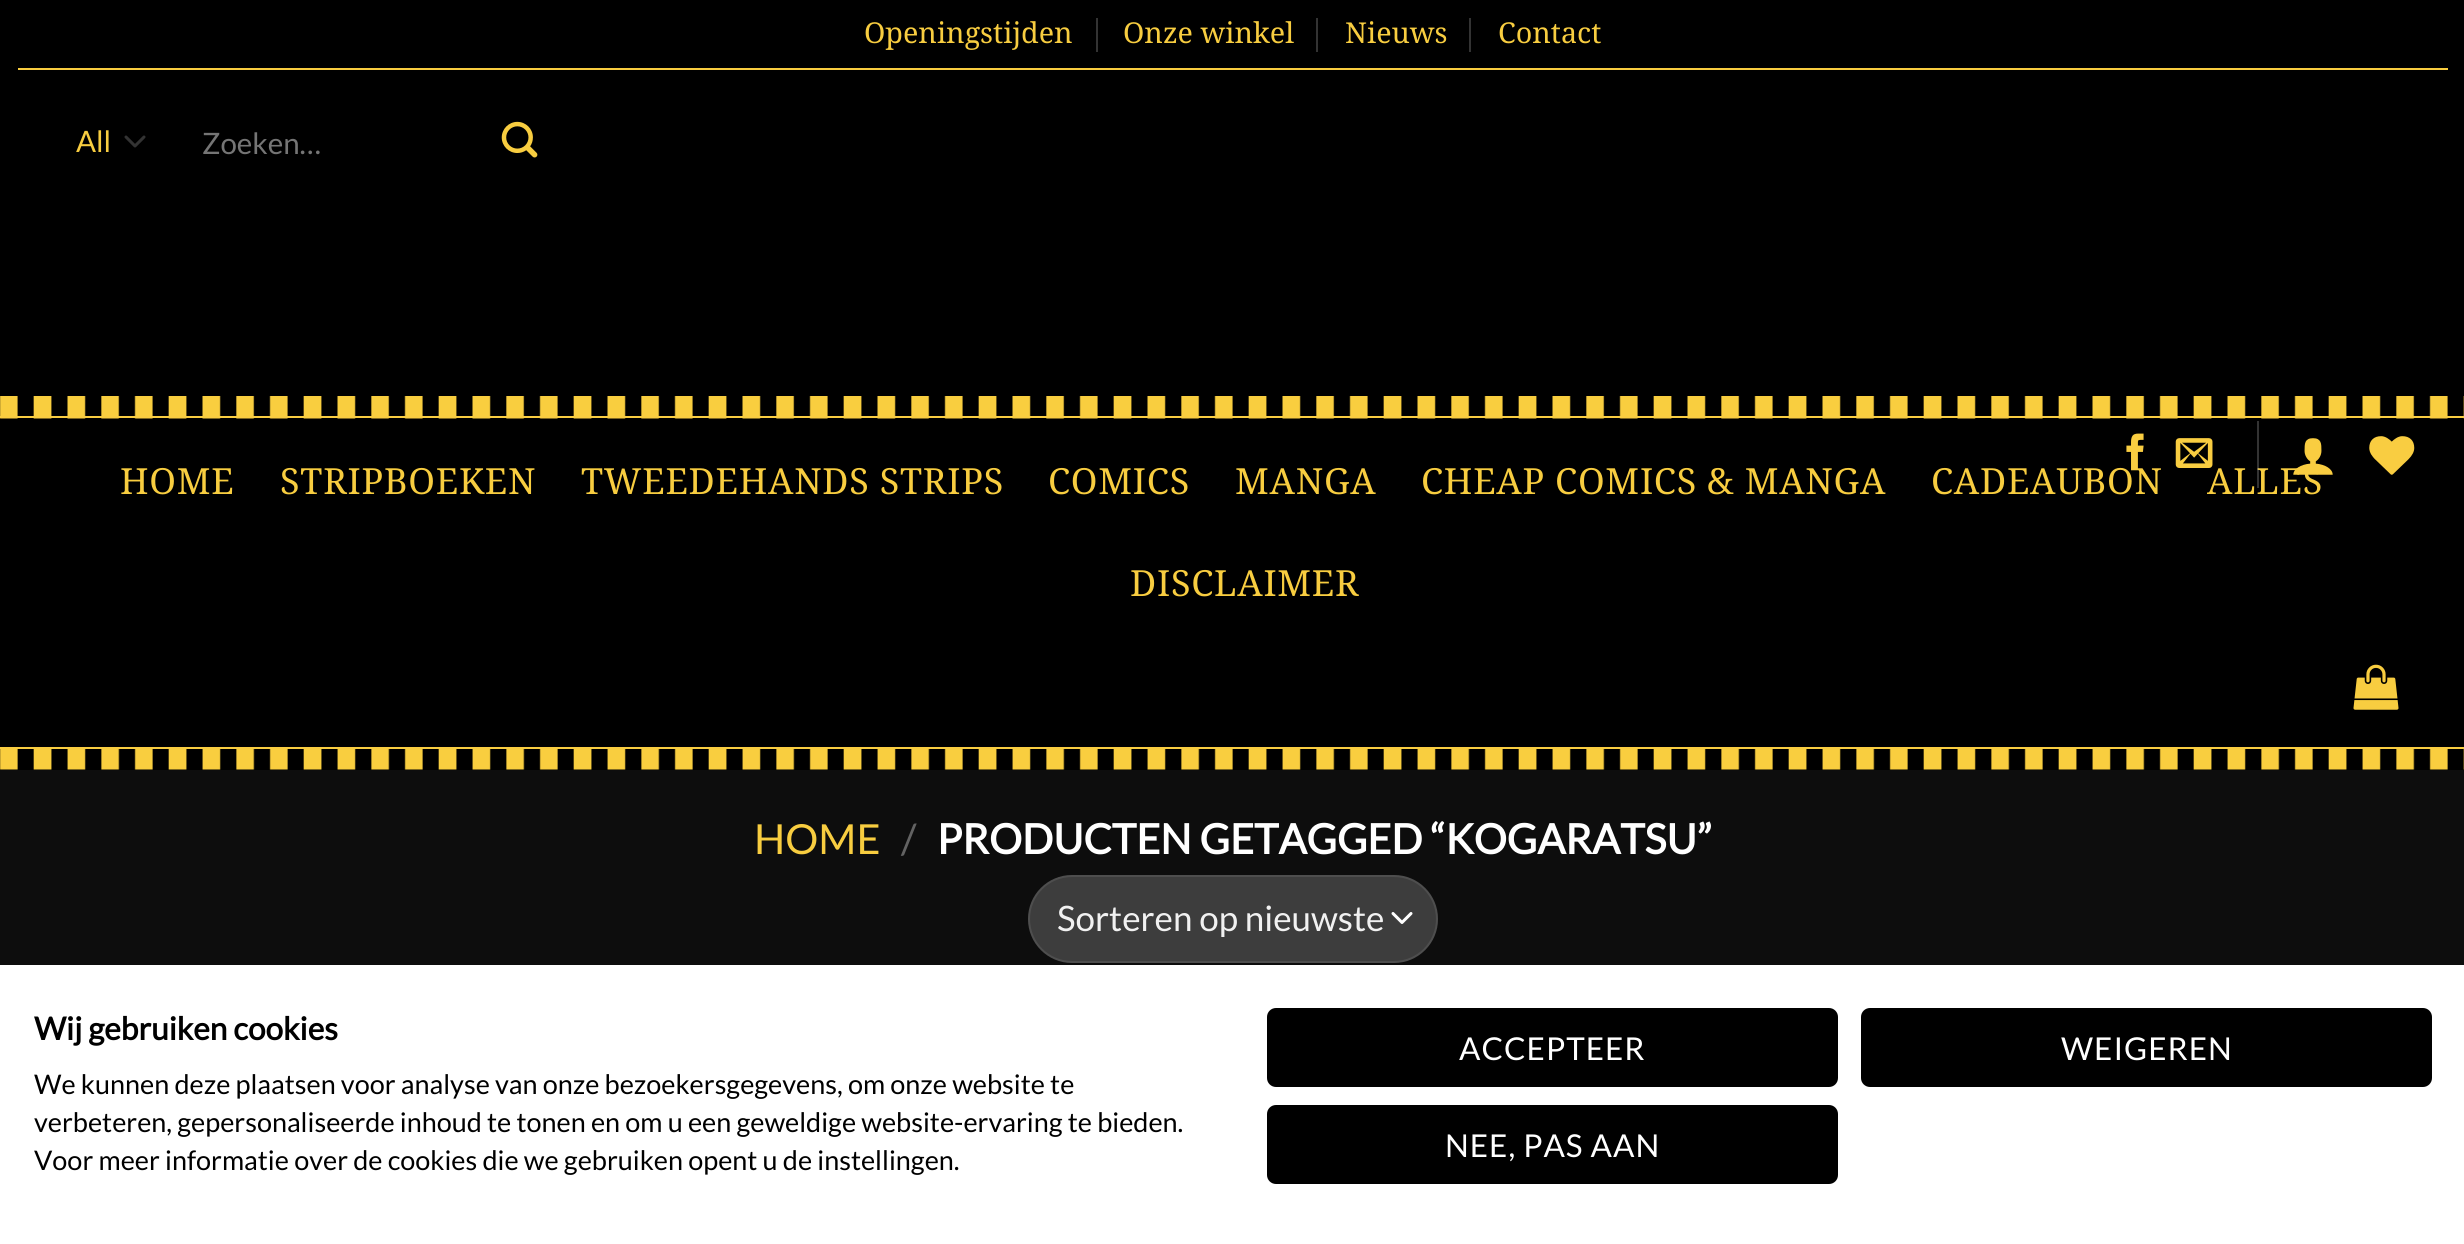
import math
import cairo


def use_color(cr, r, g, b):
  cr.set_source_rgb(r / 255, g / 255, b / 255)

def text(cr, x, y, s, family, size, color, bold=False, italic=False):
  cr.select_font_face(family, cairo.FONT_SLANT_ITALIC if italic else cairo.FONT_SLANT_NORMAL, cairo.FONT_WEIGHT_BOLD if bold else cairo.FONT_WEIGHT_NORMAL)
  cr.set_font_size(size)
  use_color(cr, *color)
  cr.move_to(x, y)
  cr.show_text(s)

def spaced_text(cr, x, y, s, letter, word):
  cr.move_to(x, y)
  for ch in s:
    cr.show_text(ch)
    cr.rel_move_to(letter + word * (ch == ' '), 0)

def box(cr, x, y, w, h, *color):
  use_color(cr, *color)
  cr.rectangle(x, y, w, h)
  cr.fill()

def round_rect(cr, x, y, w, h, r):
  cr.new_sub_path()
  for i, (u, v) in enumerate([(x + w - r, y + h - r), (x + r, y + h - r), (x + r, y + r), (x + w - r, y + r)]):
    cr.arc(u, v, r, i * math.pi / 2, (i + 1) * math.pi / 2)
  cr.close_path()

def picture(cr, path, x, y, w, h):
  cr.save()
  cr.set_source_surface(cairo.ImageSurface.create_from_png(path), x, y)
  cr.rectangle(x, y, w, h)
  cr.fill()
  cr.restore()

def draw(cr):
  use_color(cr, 0, 0, 0)
  cr.paint()
  box(cr, 18, 68, 2430, 2, 248, 205, 64)
  box(cr, 1096, 18, 2, 34, 51, 51, 51)
  box(cr, 1316, 18, 2, 34, 51, 51, 51)
  box(cr, 1469, 18, 2, 34, 51, 51, 51)
  cr.new_path()
  cr.move_to(126, 137)
  cr.line_to(135, 146)
  cr.line_to(144, 137)
  cr.set_line_width(3)
  cr.set_line_cap(cairo.LINE_CAP_ROUND)
  cr.set_line_join(cairo.LINE_JOIN_ROUND)
  cr.stroke()
  picture(cr, "img_01.png", 501, 121, 37, 37)
  picture(cr, "img_05.png", 2369, 436, 46, 39)
  picture(cr, "img_06.png", 0, 396, 2464, 23)
  box(cr, 0, 416, 2464, 2, 249, 205, 65)
  picture(cr, "img_07.png", 2353, 664, 46, 46)
  picture(cr, "img_08.png", 0, 749, 2464, 21)
  box(cr, 0, 747, 2464, 2, 249, 205, 65)
  box(cr, 0, 770, 2464, 195, 13, 13, 13)
  use_color(cr, 61, 61, 61)
  round_rect(cr, 1028, 875, 410, 88, 44)
  cr.fill()
  cr.new_path()
  cr.move_to(1393, 913.5)
  cr.line_to(1402, 922.5)
  cr.line_to(1411, 913.5)
  use_color(cr, 255, 255, 255)
  cr.stroke()
  round_rect(cr, 1029, 876, 408, 86, 43)
  cr.set_source_rgba(1, 1, 1, 0.09)
  cr.set_line_width(2)
  cr.set_line_cap(cairo.LINE_CAP_BUTT)
  cr.set_line_join(cairo.LINE_JOIN_MITER)
  cr.stroke()
  box(cr, 0, 965, 2464, 279, 255, 255, 255)
  use_color(cr, 0, 0, 0)
  round_rect(cr, 1268, 1009, 569, 77, 8)
  cr.fill_preserve()
  cr.stroke()
  round_rect(cr, 1862, 1009, 569, 77, 8)
  cr.fill_preserve()
  cr.stroke()
  round_rect(cr, 1268, 1106, 569, 77, 8)
  cr.fill_preserve()
  cr.stroke()
  text(cr, 864, 43, "Openingstijden", "Droid Serif", 28.75, (248, 205, 64))
  text(cr, 1123, 43, "Onze winkel", "Droid Serif", 28.75, (248, 205, 64))
  text(cr, 1345, 43, "Nieuws", "Droid Serif", 28.75, (248, 205, 64))
  text(cr, 1498, 43, "Contact", "Droid Serif", 28.75, (248, 205, 64))
  text(cr, 76, 152, "All", "Lato", 29.5, (248, 205, 64))
  text(cr, 202, 154, "Zoeken…", "Lato", 29.5, (117, 117, 117))
  cr.select_font_face("Droid Serif")
  cr.set_font_size(36)
  use_color(cr, 248, 205, 64)
  spaced_text(cr, 120, 494, "HOME", 0.75, 0)
  spaced_text(cr, 280, 494, "STRIPBOEKEN", 0.75, 0)
  spaced_text(cr, 581, 494, "TWEEDEHANDS STRIPS", 0.75, 0)
  spaced_text(cr, 1048, 494, "COMICS", 0.75, 0)
  spaced_text(cr, 1235, 494, "MANGA", 0.75, 0)
  spaced_text(cr, 1421, 494, "CHEAP COMICS & MANGA", 0.75, 0)
  spaced_text(cr, 1931, 494, "CADEAUBON", 0.75, 0)
  picture(cr, "img_02.png", 2126, 433, 18, 38)
  spaced_text(cr, 2207, 494, "ALLES", 0.75, 0)
  picture(cr, "img_04.png", 2293, 438, 40, 37)
  cr.set_source_rgba(1, 1, 1, 0.2)
  cr.rectangle(2257, 421, 2, 67)
  cr.fill()
  picture(cr, "img_03.png", 2175, 438, 38, 30)
  use_color(cr, 248, 205, 64)
  spaced_text(cr, 1130, 596, "DISCLAIMER", 0.75, 0)
  text(cr, 754, 854, "HOME", "Lato", 41.4, (248, 205, 64))
  text(cr, 901, 854, "/", "Lato", 41.4, (98, 98, 98))
  text(cr, 937, 854, "PRODUCTEN GETAGGED “KOGARATSU”", "Lato", 41.4, (255, 255, 255), bold=True)
  text(cr, 1057, 931, "Sorteren op nieuwste", "Lato", 35, (241, 241, 241))
  text(cr, 34, 1040, "Wij gebruiken cookies", "Lato", 31.5, (0, 0, 0), bold=True)
  text(cr, 34, 1094, "We kunnen deze plaatsen voor analyse van onze bezoekersgegevens, om onze website te", "Lato", 27, (0, 0, 0))
  text(cr, 34, 1132, "verbeteren, gepersonaliseerde inhoud te tonen en om u een geweldige website-ervaring te bieden.", "Lato", 27, (0, 0, 0))
  text(cr, 34, 1170, "Voor meer informatie over de cookies die we gebruiken opent u de instellingen.", "Lato", 27, (0, 0, 0))
  cr.set_font_size(31.5)
  use_color(cr, 255, 255, 255)
  spaced_text(cr, 1459, 1060, "ACCEPTEER", 1, 0)
  spaced_text(cr, 2061, 1060, "WEIGEREN", 1, 0)
  spaced_text(cr, 1445, 1157, "NEE, PAS AAN", 1, 0)


surface = cairo.ImageSurface(cairo.FORMAT_RGB24, 2464, 1244)
cr = cairo.Context(surface)
options = cairo.FontOptions()
options.set_hint_metrics(cairo.HINT_METRICS_OFF)
options.set_hint_style(cairo.HINT_STYLE_NONE)
cr.set_font_options(options)
cr.set_miter_limit(4)
draw(cr)
surface.write_to_png("out.png")
